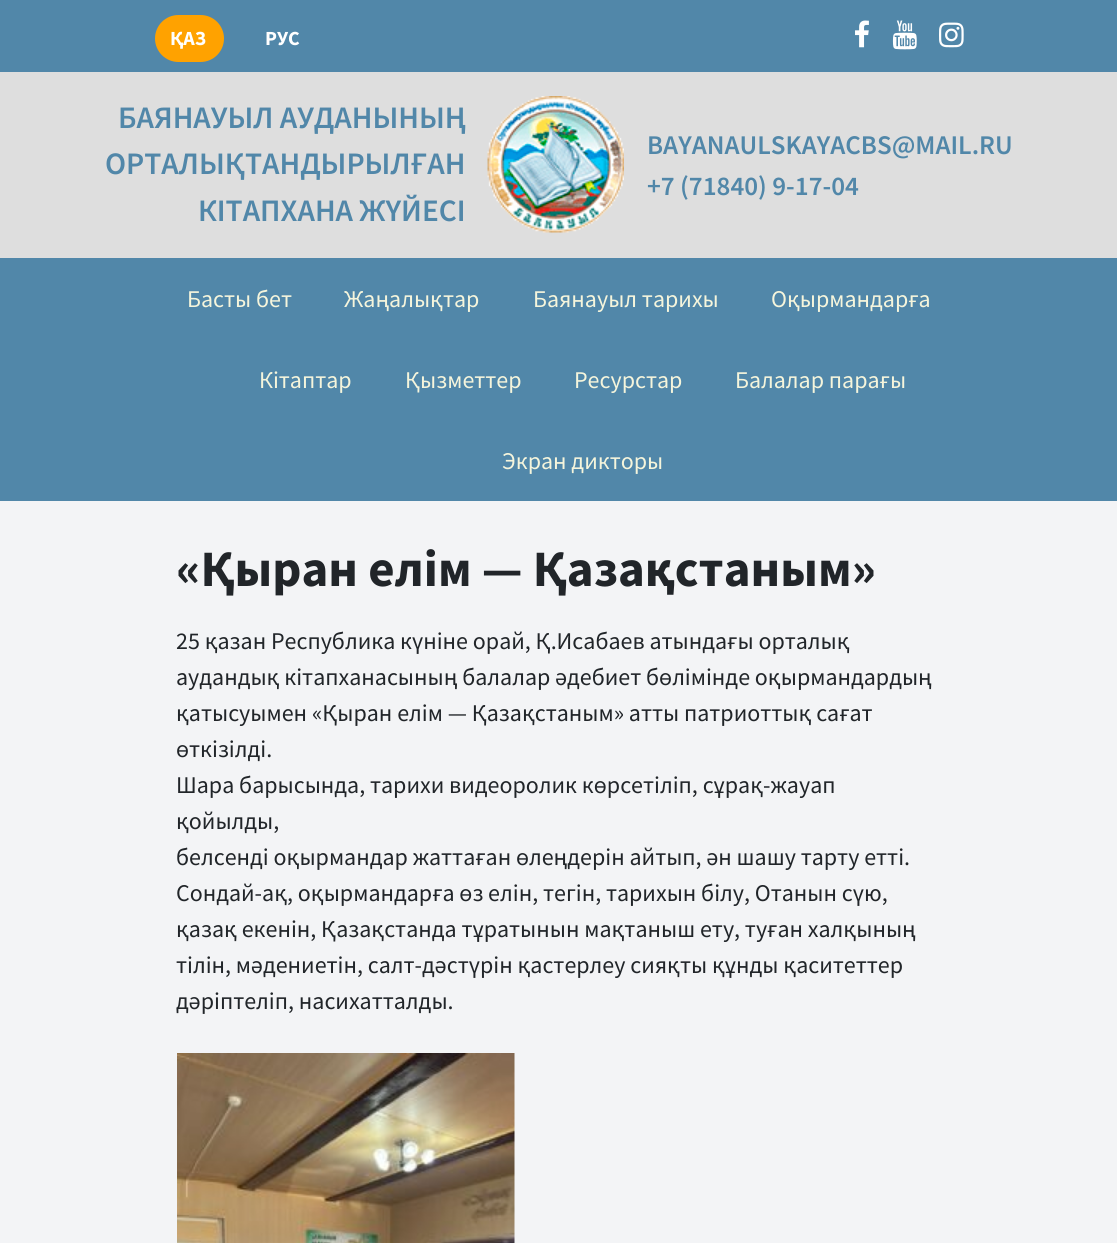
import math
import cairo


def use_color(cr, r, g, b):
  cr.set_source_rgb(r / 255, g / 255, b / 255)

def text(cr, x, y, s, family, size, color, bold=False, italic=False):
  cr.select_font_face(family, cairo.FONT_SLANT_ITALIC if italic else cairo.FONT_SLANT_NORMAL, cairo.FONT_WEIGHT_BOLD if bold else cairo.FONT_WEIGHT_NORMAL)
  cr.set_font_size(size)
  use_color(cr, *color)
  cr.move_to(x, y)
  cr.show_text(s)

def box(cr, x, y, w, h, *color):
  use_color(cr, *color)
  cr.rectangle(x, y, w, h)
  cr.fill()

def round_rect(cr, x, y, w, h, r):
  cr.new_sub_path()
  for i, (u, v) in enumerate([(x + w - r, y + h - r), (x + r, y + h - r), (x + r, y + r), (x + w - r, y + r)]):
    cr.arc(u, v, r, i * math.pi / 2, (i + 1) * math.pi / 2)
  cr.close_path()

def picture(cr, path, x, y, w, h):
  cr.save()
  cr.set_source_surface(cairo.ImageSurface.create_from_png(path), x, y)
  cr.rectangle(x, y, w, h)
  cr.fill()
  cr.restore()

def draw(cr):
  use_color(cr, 243, 244, 246)
  cr.paint()
  box(cr, 0, 0, 1117, 72, 81, 135, 169)
  use_color(cr, 255, 162, 0)
  round_rect(cr, 155, 15, 69, 47, 23.5)
  cr.fill()
  picture(cr, "img_01.png", 855, 20, 14, 28)
  picture(cr, "img_02.png", 892, 20, 25, 30)
  picture(cr, "img_03.png", 939, 22, 25, 26)
  box(cr, 0, 72, 1117, 186, 222, 222, 222)
  picture(cr, "img_04.png", 487, 96, 137, 137)
  box(cr, 0, 258, 1117, 243, 81, 135, 169)
  picture(cr, "img_05.png", 177, 1053, 338, 190)
  text(cr, 170, 45, "ҚАЗ", "Source Sans Pro", 20, (255, 255, 255), bold=True)
  text(cr, 265, 45, "РУС", "Source Sans Pro", 20, (255, 255, 255), bold=True)
  text(cr, 118, 128, "БАЯНАУЫЛ АУДАНЫНЫҢ", "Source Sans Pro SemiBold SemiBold", 31.25, (81, 135, 169))
  text(cr, 105, 174, "ОРТАЛЫҚТАНДЫРЫЛҒАН", "Source Sans Pro SemiBold SemiBold", 31.25, (81, 135, 169))
  text(cr, 198, 221, "КІТАПХАНА ЖҮЙЕСІ", "Source Sans Pro SemiBold SemiBold", 31.25, (81, 135, 169))
  text(cr, 647, 154, "BAYANAULSKAYACBS@MAIL.RU", "Source Sans Pro SemiBold SemiBold", 27, (81, 135, 169))
  text(cr, 647, 195, "+7 (71840) 9-17-04", "Source Sans Pro SemiBold SemiBold", 27, (81, 135, 169))
  text(cr, 187, 307, "Басты бет", "Source Sans Pro", 24, (245, 245, 220))
  text(cr, 344, 307, "Жаңалықтар", "Source Sans Pro", 24, (245, 245, 220))
  text(cr, 533, 307, "Баянауыл тарихы", "Source Sans Pro", 24, (245, 245, 220))
  text(cr, 771, 307, "Оқырмандарға", "Source Sans Pro", 24, (245, 245, 220))
  text(cr, 259, 388, "Кітаптар", "Source Sans Pro", 24, (245, 245, 220))
  text(cr, 405, 388, "Қызметтер", "Source Sans Pro", 24, (245, 245, 220))
  text(cr, 574, 388, "Ресурстар", "Source Sans Pro", 24, (245, 245, 220))
  text(cr, 735, 388, "Балалар парағы", "Source Sans Pro", 24, (245, 245, 220))
  text(cr, 502, 469, "Экран дикторы", "Source Sans Pro", 24, (245, 245, 220))
  text(cr, 176, 586, "«Қыран елім — Қазақстаным»", "Source Sans Pro", 51, (33, 37, 41), bold=True)
  text(cr, 176, 649, "25 қазан Республика күніне орай, Қ.Исабаев атындағы орталық", "Source Sans Pro", 24, (33, 37, 41))
  text(cr, 176, 685, "аудандық кітапханасының балалар әдебиет бөлімінде оқырмандардың", "Source Sans Pro", 24, (33, 37, 41))
  text(cr, 176, 721, "қатысуымен «Қыран елім — Қазақстаным» атты патриоттық сағат", "Source Sans Pro", 24, (33, 37, 41))
  text(cr, 176, 757, "өткізілді.", "Source Sans Pro", 24, (33, 37, 41))
  text(cr, 176, 793, "Шара барысында, тарихи видеоролик көрсетіліп, сұрақ-жауап", "Source Sans Pro", 24, (33, 37, 41))
  text(cr, 176, 829, "қойылды,", "Source Sans Pro", 24, (33, 37, 41))
  text(cr, 176, 865, "белсенді оқырмандар жаттаған өлеңдерін айтып, ән шашу тарту етті.", "Source Sans Pro", 24, (33, 37, 41))
  text(cr, 176, 901, "Сондай-ақ, оқырмандарға өз елін, тегін, тарихын білу, Отанын сүю,", "Source Sans Pro", 24, (33, 37, 41))
  text(cr, 176, 937, "қазақ екенін, Қазақстанда тұратынын мақтаныш ету, туған халқының", "Source Sans Pro", 24, (33, 37, 41))
  text(cr, 176, 973, "тілін, мәдениетін, салт-дәстүрін қастерлеу сияқты құнды қаситеттер", "Source Sans Pro", 24, (33, 37, 41))
  text(cr, 176, 1009, "дәріптеліп, насихатталды.", "Source Sans Pro", 24, (33, 37, 41))


surface = cairo.ImageSurface(cairo.FORMAT_RGB24, 1117, 1243)
cr = cairo.Context(surface)
options = cairo.FontOptions()
options.set_hint_metrics(cairo.HINT_METRICS_OFF)
options.set_hint_style(cairo.HINT_STYLE_NONE)
cr.set_font_options(options)
cr.set_miter_limit(4)
draw(cr)
surface.write_to_png("out.png")
